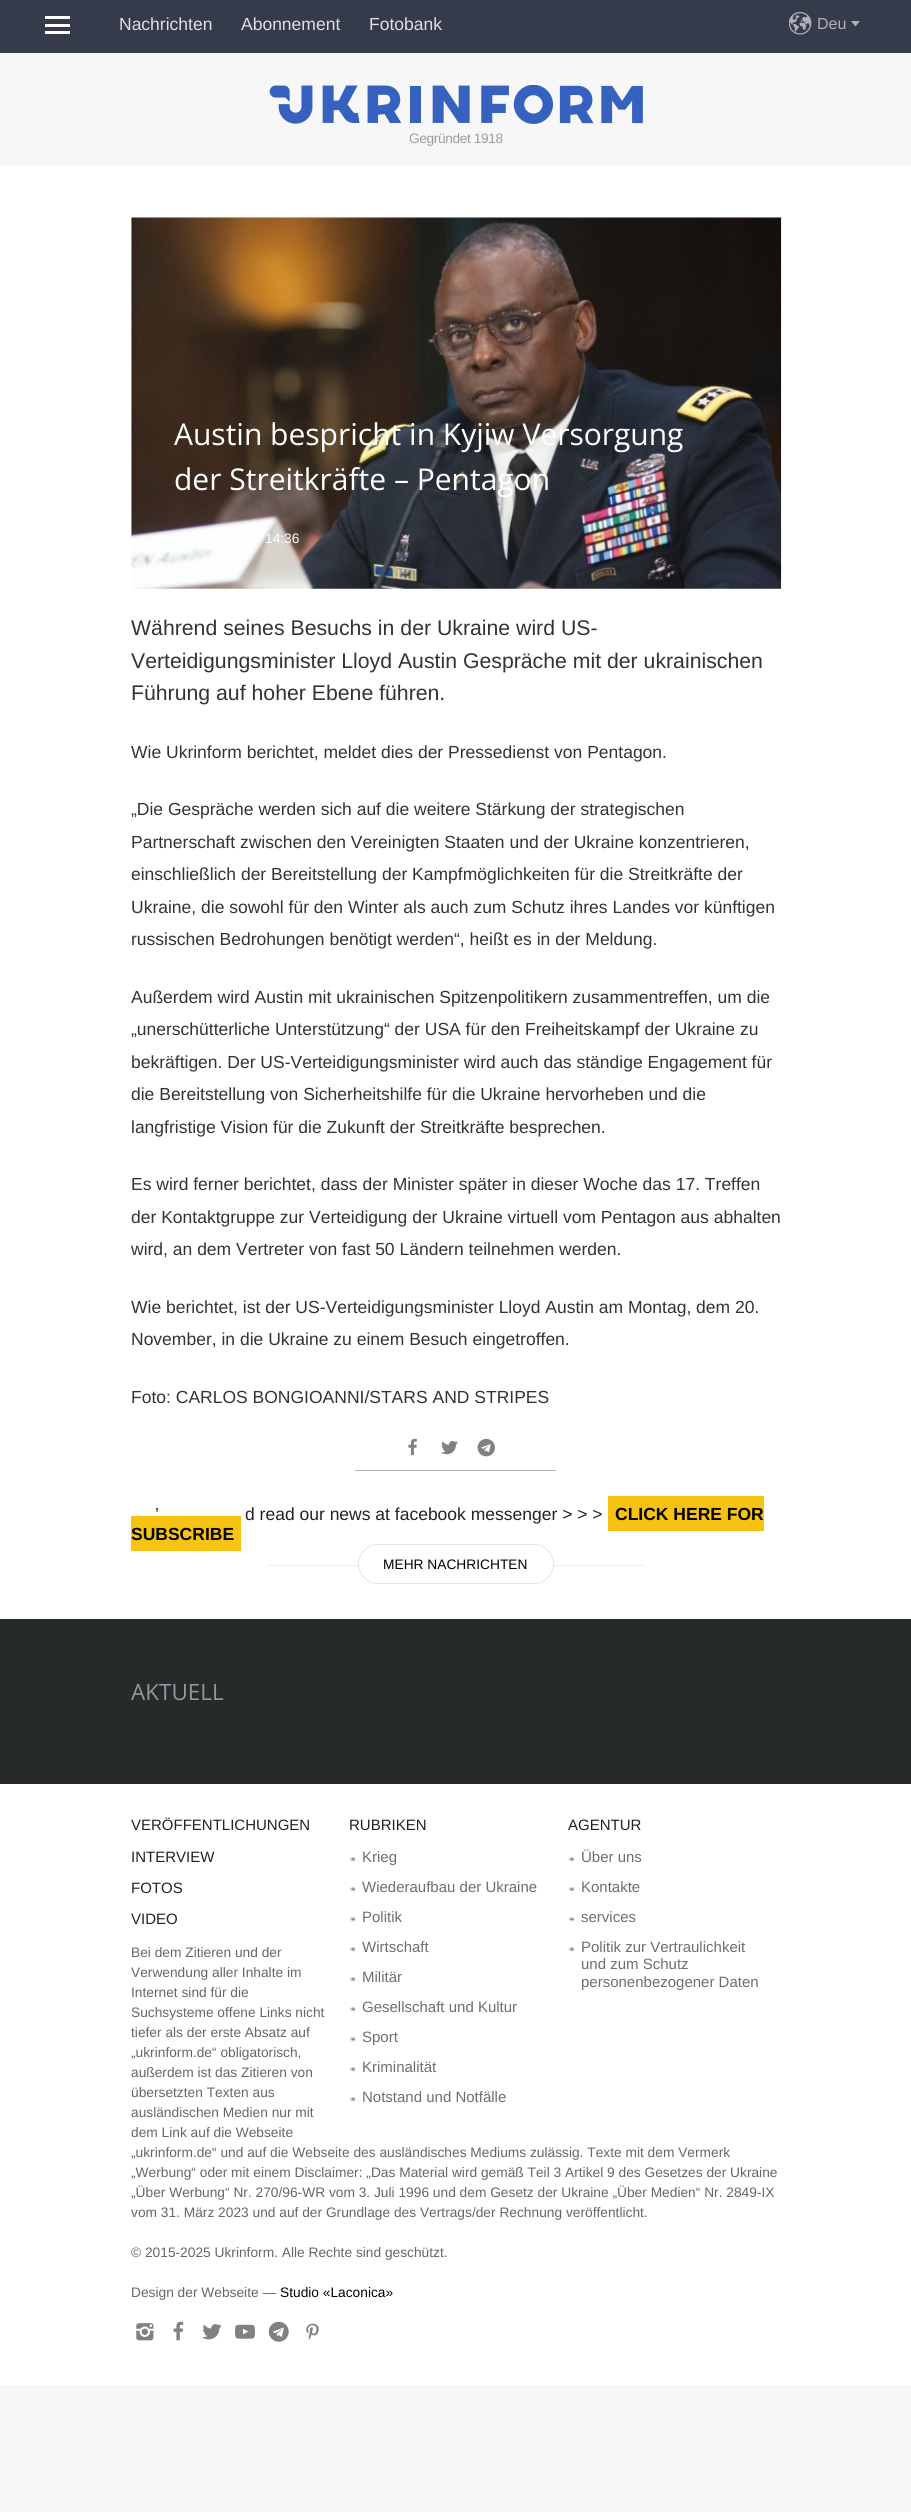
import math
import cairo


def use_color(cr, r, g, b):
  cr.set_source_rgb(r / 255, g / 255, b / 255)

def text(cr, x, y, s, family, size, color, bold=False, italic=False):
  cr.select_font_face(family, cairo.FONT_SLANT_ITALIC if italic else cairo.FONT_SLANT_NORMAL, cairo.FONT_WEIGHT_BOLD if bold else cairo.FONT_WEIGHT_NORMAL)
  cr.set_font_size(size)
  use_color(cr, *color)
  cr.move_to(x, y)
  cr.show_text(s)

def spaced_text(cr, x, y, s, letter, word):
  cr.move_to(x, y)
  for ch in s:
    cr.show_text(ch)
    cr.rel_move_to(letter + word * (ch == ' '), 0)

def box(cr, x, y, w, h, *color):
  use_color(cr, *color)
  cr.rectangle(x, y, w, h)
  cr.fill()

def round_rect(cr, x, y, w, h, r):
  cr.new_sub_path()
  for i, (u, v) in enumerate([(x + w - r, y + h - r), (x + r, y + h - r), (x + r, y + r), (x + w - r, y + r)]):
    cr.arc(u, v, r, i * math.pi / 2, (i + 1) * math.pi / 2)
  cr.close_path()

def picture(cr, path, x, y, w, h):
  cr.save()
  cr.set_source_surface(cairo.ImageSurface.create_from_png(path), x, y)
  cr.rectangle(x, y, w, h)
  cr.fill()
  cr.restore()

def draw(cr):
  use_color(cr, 247, 247, 247)
  cr.paint()
  box(cr, 0, 165, 911, 2220, 255, 255, 255)
  box(cr, 0, 0, 911, 53, 53, 59, 75)
  box(cr, 45, 16, 25, 3, 255, 255, 255)
  box(cr, 45, 31, 25, 3, 255, 255, 255)
  box(cr, 45, 24, 25, 3, 255, 255, 255)
  picture(cr, "img_01.png", 789, 12, 23, 23)
  use_color(cr, 174, 177, 183)
  cr.new_path()
  cr.move_to(855.5, 26.5)
  cr.line_to(851, 21)
  cr.line_to(860, 21)
  cr.close_path()
  cr.fill()
  picture(cr, "img_02.png", 269, 85, 374, 39)
  picture(cr, "img_03.png", 131, 217, 651, 372)
  box(cr, 355, 1470, 201, 1, 178, 178, 178)
  picture(cr, "img_04.png", 408, 1438, 9, 18)
  picture(cr, "img_05.png", 441, 1441, 17, 14)
  picture(cr, "img_06.png", 477, 1438, 18, 19)
  box(cr, 608, 1496, 156, 35, 247, 195, 19)
  box(cr, 131, 1516, 110, 35, 247, 195, 19)
  box(cr, 268, 1565, 376, 1, 237, 237, 237)
  use_color(cr, 255, 255, 255)
  round_rect(cr, 358.5, 1544.5, 195, 39, 19.5)
  cr.fill_preserve()
  use_color(cr, 228, 228, 228)
  cr.set_line_width(1)
  cr.stroke()
  box(cr, 0, 1619, 911, 165, 38, 42, 43)
  picture(cr, "img_07.png", 350, 1857, 5, 5)
  picture(cr, "img_07.png", 350, 1887, 5, 5)
  picture(cr, "img_07.png", 350, 1917, 5, 5)
  picture(cr, "img_07.png", 350, 1947, 5, 5)
  picture(cr, "img_07.png", 350, 1977, 5, 5)
  picture(cr, "img_07.png", 350, 2007, 5, 5)
  picture(cr, "img_07.png", 350, 2037, 5, 5)
  picture(cr, "img_07.png", 350, 2067, 5, 5)
  picture(cr, "img_07.png", 350, 2097, 5, 5)
  picture(cr, "img_08.png", 568, 1857, 6, 5)
  picture(cr, "img_08.png", 568, 1887, 6, 5)
  picture(cr, "img_08.png", 568, 1917, 6, 5)
  picture(cr, "img_08.png", 568, 1947, 6, 5)
  picture(cr, "img_09.png", 136, 2323, 18, 18)
  picture(cr, "img_10.png", 173, 2321, 11, 20)
  picture(cr, "img_11.png", 202, 2324, 20, 16)
  picture(cr, "img_12.png", 235, 2324, 20, 15)
  picture(cr, "img_13.png", 268, 2321, 21, 21)
  picture(cr, "img_14.png", 306, 2323, 13, 17)
  text(cr, 119, 30, "Nachrichten", "Liberation Sans", 17.5, (223, 224, 224))
  text(cr, 241, 30, "Abonnement", "Liberation Sans", 17.5, (223, 224, 224))
  text(cr, 369, 30, "Fotobank", "Liberation Sans", 17.5, (223, 224, 224))
  text(cr, 817, 29, "Deu", "Liberation Sans", 16, (174, 177, 183))
  cr.set_font_size(13.75)
  use_color(cr, 156, 156, 156)
  spaced_text(cr, 409, 143, "Gegründet 1918", -0.4, 0)
  text(cr, 174, 445, "Austin bespricht in Kyjiw Versorgung", "Open Sans", 30, (255, 255, 255))
  text(cr, 174, 490, "der Streitkräfte – Pentagon", "Open Sans", 30, (255, 255, 255))
  text(cr, 265, 543, "14:36", "Liberation Sans", 13.75, (255, 255, 255))
  text(cr, 131, 635, "Während seines Besuchs in der Ukraine wird US-", "Liberation Sans", 21.25, (51, 51, 51))
  text(cr, 131, 668, "Verteidigungsminister Lloyd Austin Gespräche mit der ukrainischen", "Liberation Sans", 21.25, (51, 51, 51))
  text(cr, 131, 700, "Führung auf hoher Ebene führen.", "Liberation Sans", 21.25, (51, 51, 51))
  text(cr, 131, 758, "Wie Ukrinform berichtet, meldet dies der Pressedienst von Pentagon.", "Liberation Sans", 17.5, (51, 51, 51))
  text(cr, 131, 815, "„Die Gespräche werden sich auf die weitere Stärkung der strategischen", "Liberation Sans", 17.5, (51, 51, 51))
  text(cr, 131, 848, "Partnerschaft zwischen den Vereinigten Staaten und der Ukraine konzentrieren,", "Liberation Sans", 17.5, (51, 51, 51))
  text(cr, 131, 880, "einschließlich der Bereitstellung der Kampfmöglichkeiten für die Streitkräfte der", "Liberation Sans", 17.5, (51, 51, 51))
  text(cr, 131, 913, "Ukraine, die sowohl für den Winter als auch zum Schutz ihres Landes vor künftigen", "Liberation Sans", 17.5, (51, 51, 51))
  text(cr, 131, 945, "russischen Bedrohungen benötigt werden“, heißt es in der Meldung.", "Liberation Sans", 17.5, (51, 51, 51))
  text(cr, 131, 1003, "Außerdem wird Austin mit ukrainischen Spitzenpolitikern zusammentreffen, um die", "Liberation Sans", 17.5, (51, 51, 51))
  text(cr, 131, 1035, "„unerschütterliche Unterstützung“ der USA für den Freiheitskampf der Ukraine zu", "Liberation Sans", 17.5, (51, 51, 51))
  text(cr, 131, 1068, "bekräftigen. Der US-Verteidigungsminister wird auch das ständige Engagement für", "Liberation Sans", 17.5, (51, 51, 51))
  text(cr, 131, 1100, "die Bereitstellung von Sicherheitshilfe für die Ukraine hervorheben und die", "Liberation Sans", 17.5, (51, 51, 51))
  text(cr, 131, 1133, "langfristige Vision für die Zukunft der Streitkräfte besprechen.", "Liberation Sans", 17.5, (51, 51, 51))
  text(cr, 131, 1190, "Es wird ferner berichtet, dass der Minister später in dieser Woche das 17. Treffen", "Liberation Sans", 17.5, (51, 51, 51))
  text(cr, 131, 1223, "der Kontaktgruppe zur Verteidigung der Ukraine virtuell vom Pentagon aus abhalten", "Liberation Sans", 17.5, (51, 51, 51))
  text(cr, 131, 1255, "wird, an dem Vertreter von fast 50 Ländern teilnehmen werden.", "Liberation Sans", 17.5, (51, 51, 51))
  text(cr, 131, 1313, "Wie berichtet, ist der US-Verteidigungsminister Lloyd Austin am Montag, dem 20.", "Liberation Sans", 17.5, (51, 51, 51))
  text(cr, 131, 1345, "November, in die Ukraine zu einem Besuch eingetroffen.", "Liberation Sans", 17.5, (51, 51, 51))
  text(cr, 131, 1403, "Foto: CARLOS BONGIOANNI/STARS AND STRIPES", "Liberation Sans", 17.5, (51, 51, 51))
  text(cr, 155, 1520, "’", "Liberation Sans", 17.5, (34, 34, 34))
  text(cr, 245, 1520, "d read our news at facebook messenger > > >", "Liberation Sans", 17.5, (34, 34, 34))
  text(cr, 615, 1520, "CLICK HERE FOR", "Liberation Sans", 17.5, (0, 0, 0), bold=True)
  text(cr, 131, 1540, "SUBSCRIBE", "Liberation Sans", 17.5, (0, 0, 0), bold=True)
  text(cr, 383, 1569, "MEHR NACHRICHTEN", "Liberation Sans", 13.75, (0, 0, 0))
  text(cr, 131, 1700, "AKTUELL", "Open Sans", 22.5, (147, 151, 153))
  text(cr, 131, 1830, "VERÖFFENTLICHUNGEN", "Liberation Sans", 15, (34, 34, 34))
  text(cr, 131, 1862, "INTERVIEW", "Liberation Sans", 15, (34, 34, 34))
  text(cr, 131, 1893, "FOTOS", "Liberation Sans", 15, (34, 34, 34))
  text(cr, 131, 1924, "VIDEO", "Liberation Sans", 15, (34, 34, 34))
  text(cr, 349, 1830, "RUBRIKEN", "Liberation Sans", 15, (34, 34, 34))
  text(cr, 362, 1862, "Krieg", "Liberation Sans", 15, (110, 110, 110))
  text(cr, 362, 1892, "Wiederaufbau der Ukraine", "Liberation Sans", 15, (110, 110, 110))
  text(cr, 362, 1922, "Politik", "Liberation Sans", 15, (110, 110, 110))
  text(cr, 362, 1952, "Wirtschaft", "Liberation Sans", 15, (110, 110, 110))
  text(cr, 362, 1982, "Militär", "Liberation Sans", 15, (110, 110, 110))
  text(cr, 362, 2012, "Gesellschaft und Kultur", "Liberation Sans", 15, (110, 110, 110))
  text(cr, 362, 2042, "Sport", "Liberation Sans", 15, (110, 110, 110))
  text(cr, 362, 2072, "Kriminalität", "Liberation Sans", 15, (110, 110, 110))
  text(cr, 362, 2102, "Notstand und Notfälle", "Liberation Sans", 15, (110, 110, 110))
  text(cr, 568, 1830, "AGENTUR", "Liberation Sans", 15, (34, 34, 34))
  text(cr, 581, 1862, "Über uns", "Liberation Sans", 15, (110, 110, 110))
  text(cr, 581, 1892, "Kontakte", "Liberation Sans", 15, (110, 110, 110))
  text(cr, 581, 1922, "services", "Liberation Sans", 15, (110, 110, 110))
  text(cr, 581, 1952, "Politik zur Vertraulichkeit", "Liberation Sans", 15, (110, 110, 110))
  text(cr, 581, 1969, "und zum Schutz", "Liberation Sans", 15, (110, 110, 110))
  text(cr, 581, 1987, "personenbezogener Daten", "Liberation Sans", 15, (110, 110, 110))
  text(cr, 131, 1957, "Bei dem Zitieren und der", "Liberation Sans", 13.75, (102, 102, 102))
  text(cr, 131, 1977, "Verwendung aller Inhalte im", "Liberation Sans", 13.75, (102, 102, 102))
  text(cr, 131, 1997, "Internet sind für die", "Liberation Sans", 13.75, (102, 102, 102))
  text(cr, 131, 2017, "Suchsysteme offene Links nicht", "Liberation Sans", 13.75, (102, 102, 102))
  text(cr, 131, 2037, "tiefer als der erste Absatz auf", "Liberation Sans", 13.75, (102, 102, 102))
  text(cr, 131, 2057, "„ukrinform.de“ obligatorisch,", "Liberation Sans", 13.75, (102, 102, 102))
  text(cr, 131, 2077, "außerdem ist das Zitieren von", "Liberation Sans", 13.75, (102, 102, 102))
  text(cr, 131, 2097, "übersetzten Texten aus", "Liberation Sans", 13.75, (102, 102, 102))
  text(cr, 131, 2117, "ausländischen Medien nur mit", "Liberation Sans", 13.75, (102, 102, 102))
  text(cr, 131, 2137, "dem Link auf die Webseite", "Liberation Sans", 13.75, (102, 102, 102))
  text(cr, 131, 2157, "„ukrinform.de“ und auf die Webseite des ausländisches Mediums zulässig. Texte mit dem Vermerk", "Liberation Sans", 13.75, (102, 102, 102))
  text(cr, 131, 2177, "„Werbung“ oder mit einem Disclaimer: „Das Material wird gemäß Teil 3 Artikel 9 des Gesetzes der Ukraine", "Liberation Sans", 13.75, (102, 102, 102))
  text(cr, 131, 2197, "„Über Werbung“ Nr. 270/96-WR vom 3. Juli 1996 und dem Gesetz der Ukraine „Über Medien“ Nr. 2849-IX", "Liberation Sans", 13.75, (102, 102, 102))
  text(cr, 131, 2217, "vom 31. März 2023 und auf der Grundlage des Vertrags/der Rechnung veröffentlicht.", "Liberation Sans", 13.75, (102, 102, 102))
  text(cr, 131, 2257, "© 2015-2025 Ukrinform. Alle Rechte sind geschützt.", "Liberation Sans", 13.75, (102, 102, 102))
  text(cr, 131, 2297, "Design der Webseite —", "Liberation Sans", 13.75, (102, 102, 102))
  text(cr, 280, 2297, "Studio «Laconica»", "Liberation Sans", 13.75, (0, 0, 0))


surface = cairo.ImageSurface(cairo.FORMAT_RGB24, 911, 2512)
cr = cairo.Context(surface)
options = cairo.FontOptions()
options.set_hint_metrics(cairo.HINT_METRICS_OFF)
options.set_hint_style(cairo.HINT_STYLE_NONE)
cr.set_font_options(options)
cr.set_miter_limit(4)
draw(cr)
surface.write_to_png("out.png")
